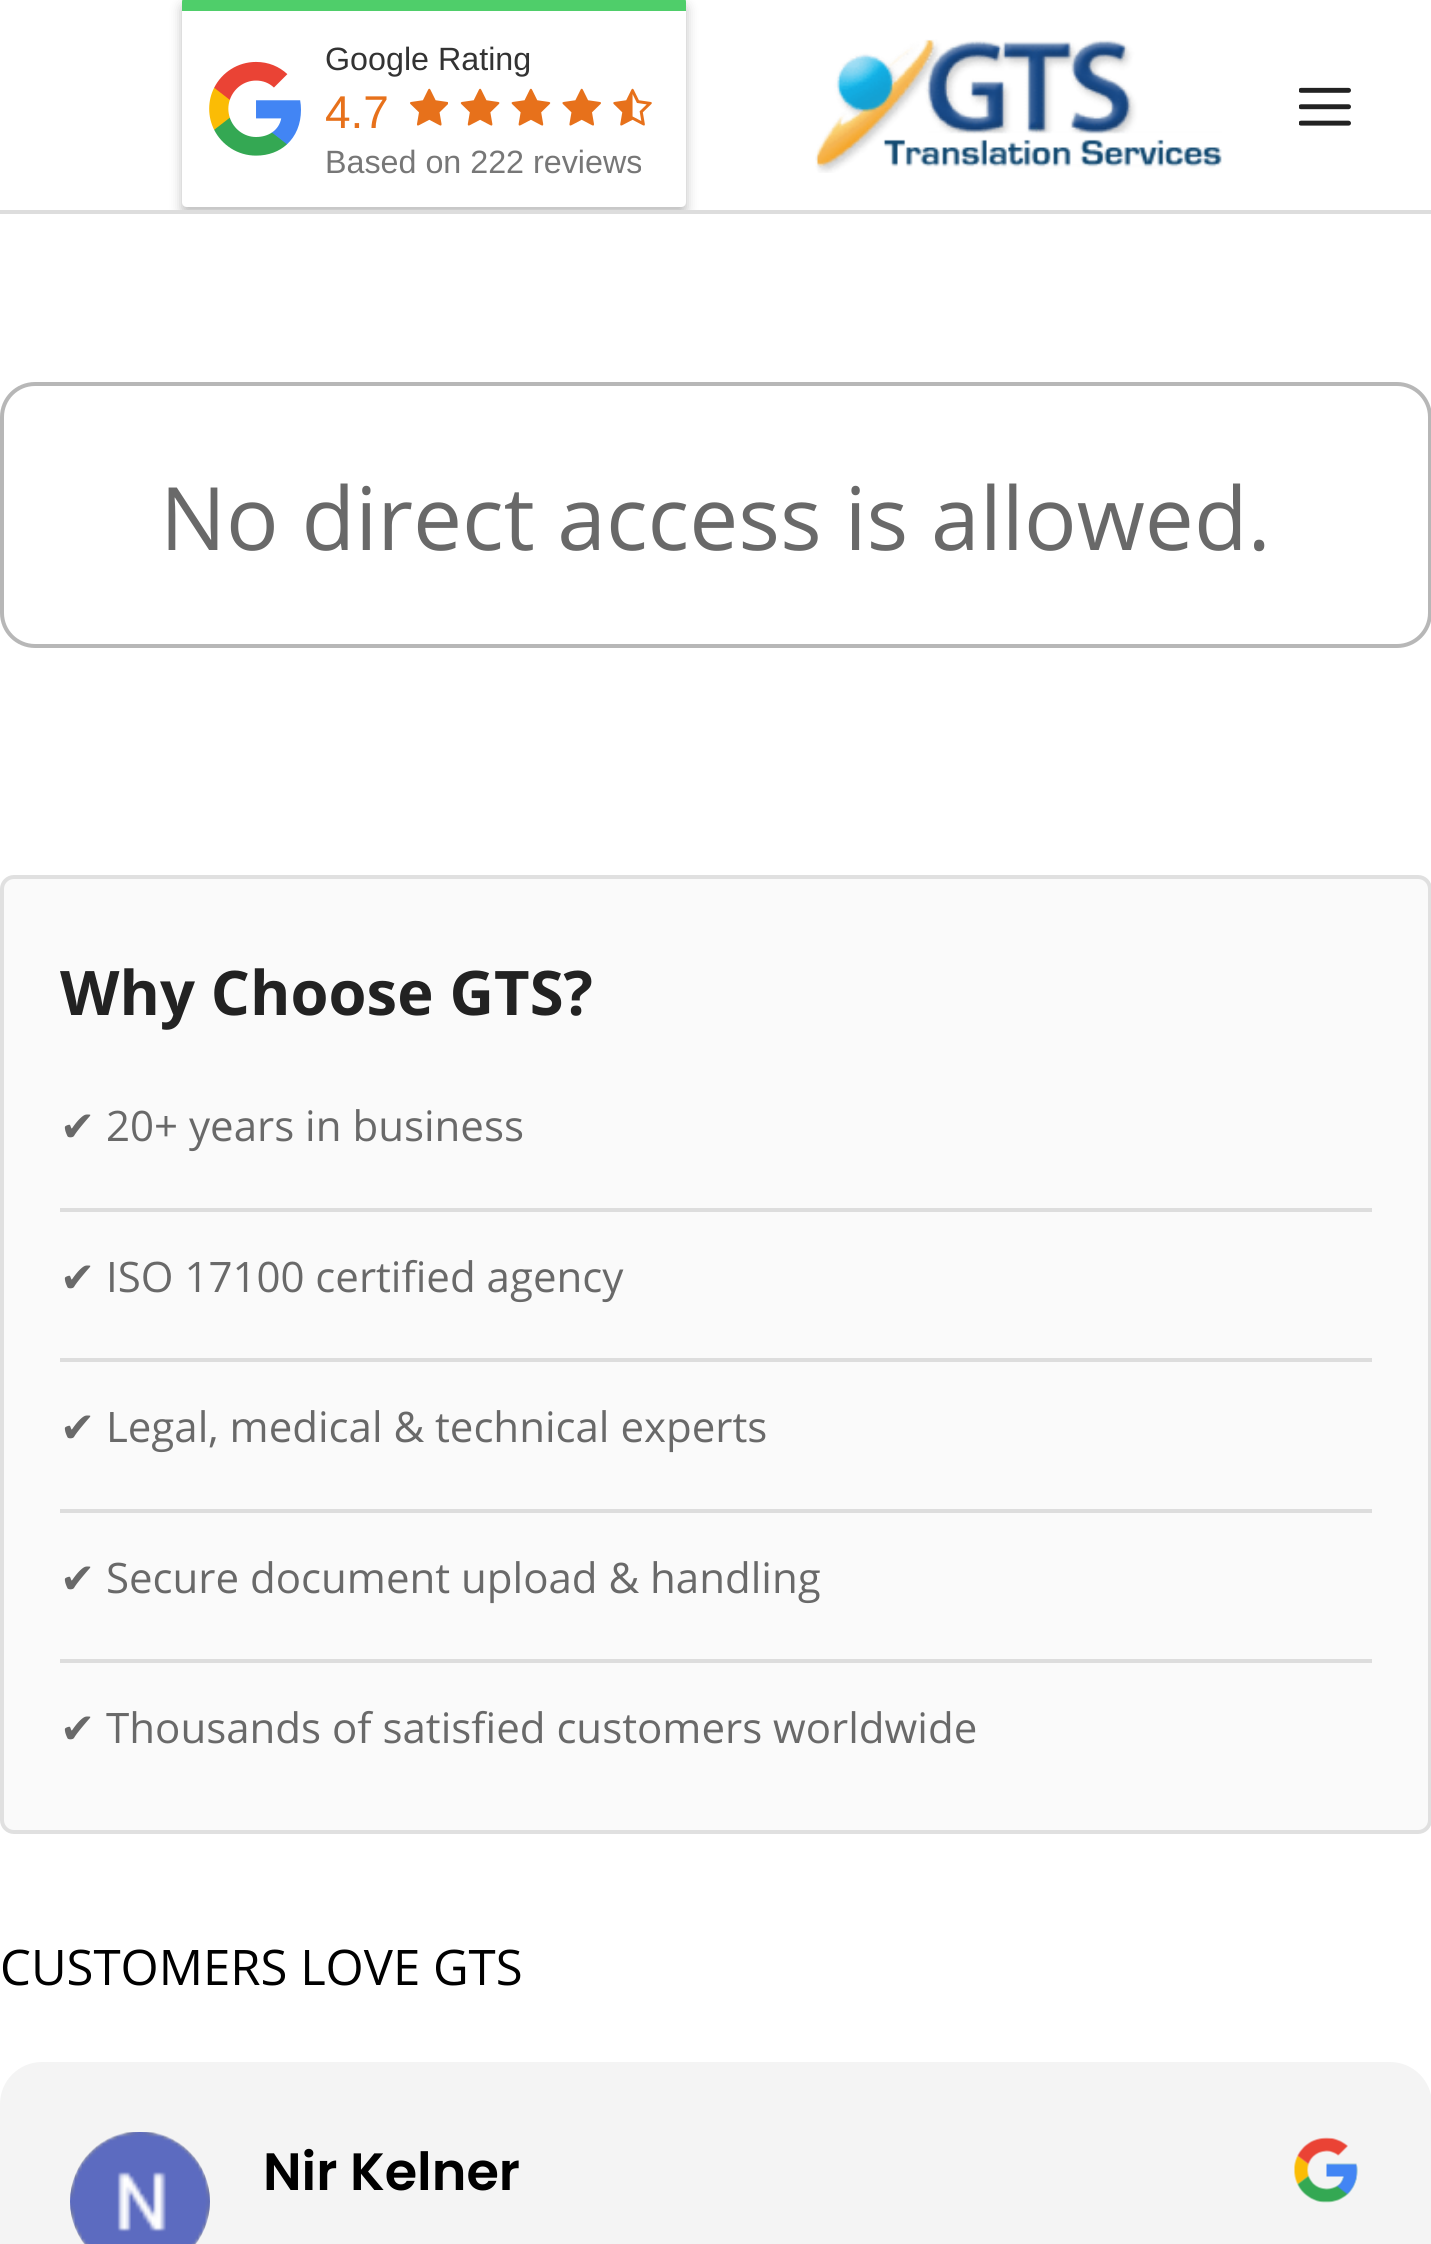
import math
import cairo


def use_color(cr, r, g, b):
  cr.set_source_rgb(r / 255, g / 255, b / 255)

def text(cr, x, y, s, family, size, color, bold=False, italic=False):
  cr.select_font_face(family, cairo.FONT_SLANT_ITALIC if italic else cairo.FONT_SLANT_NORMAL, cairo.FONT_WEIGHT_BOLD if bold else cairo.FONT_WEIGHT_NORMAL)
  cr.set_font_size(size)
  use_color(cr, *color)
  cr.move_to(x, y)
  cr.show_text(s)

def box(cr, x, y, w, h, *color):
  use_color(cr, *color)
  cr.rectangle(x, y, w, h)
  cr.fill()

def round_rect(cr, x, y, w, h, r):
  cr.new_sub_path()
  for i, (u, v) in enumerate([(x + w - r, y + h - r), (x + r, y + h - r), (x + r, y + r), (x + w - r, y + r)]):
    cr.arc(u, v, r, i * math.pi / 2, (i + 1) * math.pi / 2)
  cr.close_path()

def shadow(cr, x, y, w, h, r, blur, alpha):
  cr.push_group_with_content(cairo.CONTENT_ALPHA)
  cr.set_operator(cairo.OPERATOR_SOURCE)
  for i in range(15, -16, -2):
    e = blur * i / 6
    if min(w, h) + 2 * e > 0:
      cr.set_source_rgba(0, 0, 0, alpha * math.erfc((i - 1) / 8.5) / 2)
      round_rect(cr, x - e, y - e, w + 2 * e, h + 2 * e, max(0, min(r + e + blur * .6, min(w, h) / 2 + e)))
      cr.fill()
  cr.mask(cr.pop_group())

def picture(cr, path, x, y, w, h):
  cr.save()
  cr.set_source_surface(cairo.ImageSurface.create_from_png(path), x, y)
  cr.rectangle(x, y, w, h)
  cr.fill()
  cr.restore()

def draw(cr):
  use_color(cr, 255, 255, 255)
  cr.paint()
  box(cr, 0, 210, 1431, 4, 221, 221, 221)
  cr.save()
  cr.rectangle(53, 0, 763, 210)
  cr.clip()
  use_color(cr, 0, 0, 0)
  shadow(cr, 182, 4, 504, 210, 5, 6, 0.26)
  cr.restore()
  use_color(cr, 79, 206, 106)
  cr.new_path()
  cr.move_to(187, -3)
  cr.line_to(681, -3)
  cr.curve_to(684, -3, 686, -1, 686, 2)
  cr.line_to(686, 11)
  cr.line_to(182, 11)
  cr.line_to(182, 2)
  cr.curve_to(182, -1, 184, -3, 187, -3)
  cr.close_path()
  cr.fill()
  use_color(cr, 255, 255, 255)
  cr.new_path()
  cr.move_to(182, 11)
  cr.line_to(686, 11)
  cr.line_to(686, 202)
  cr.curve_to(686, 205, 684, 207, 681, 207)
  cr.line_to(187, 207)
  cr.curve_to(184, 207, 182, 205, 182, 202)
  cr.close_path()
  cr.fill()
  picture(cr, "img_01.png", 209, 61, 92, 95)
  picture(cr, "img_02.png", 410, 88, 38, 38)
  picture(cr, "img_03.png", 460, 88, 40, 38)
  picture(cr, "img_04.png", 511, 88, 40, 38)
  picture(cr, "img_05.png", 562, 88, 39, 38)
  picture(cr, "img_06.png", 613, 88, 39, 38)
  picture(cr, "img_07.png", 815, 39, 407, 134)
  picture(cr, "img_08.png", 1299, 87, 52, 39)
  round_rect(cr, 2, 384, 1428, 262, 33)
  use_color(cr, 183, 183, 183)
  cr.set_line_width(4)
  cr.stroke()
  use_color(cr, 250, 250, 250)
  round_rect(cr, 2, 877, 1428, 955, 12)
  cr.fill_preserve()
  use_color(cr, 224, 224, 224)
  cr.stroke()
  box(cr, 60, 1208, 1312, 4, 221, 221, 221)
  box(cr, 60, 1358, 1312, 4, 221, 221, 221)
  box(cr, 60, 1509, 1312, 4, 221, 221, 221)
  box(cr, 60, 1659, 1312, 4, 221, 221, 221)
  use_color(cr, 244, 244, 244)
  round_rect(cr, 0, 2062, 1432, 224, 42)
  cr.fill()
  picture(cr, "img_09.png", 70, 2132, 140, 112)
  picture(cr, "img_10.png", 1294, 2137, 64, 66)
  text(cr, 325, 70, "Google Rating", "Liberation Sans", 32.25, (51, 51, 51))
  text(cr, 325, 128, "4.7", "Liberation Sans", 46, (231, 113, 27))
  text(cr, 325, 173, "Based on 222 reviews", "Liberation Sans", 32.25, (119, 119, 119))
  text(cr, 160, 550, "No direct access is allowed.", "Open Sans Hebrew", 87.5, (105, 105, 105))
  text(cr, 60, 1015, "Why Choose GTS?", "Open Sans Hebrew", 61.5, (34, 34, 34), bold=True)
  text(cr, 60, 1141, "✔", "DejaVu Sans", 42, (105, 105, 105))
  text(cr, 106, 1141, "20+ years in business", "Open Sans Hebrew", 42, (105, 105, 105))
  text(cr, 60, 1292, "✔", "DejaVu Sans", 42, (105, 105, 105))
  text(cr, 106, 1292, "ISO 17100 certified agency", "Open Sans Hebrew", 42, (105, 105, 105))
  text(cr, 60, 1442, "✔", "DejaVu Sans", 42, (105, 105, 105))
  text(cr, 106, 1442, "Legal, medical & technical experts", "Open Sans Hebrew", 42, (105, 105, 105))
  text(cr, 60, 1593, "✔", "DejaVu Sans", 42, (105, 105, 105))
  text(cr, 106, 1593, "Secure document upload & handling", "Open Sans Hebrew", 42, (105, 105, 105))
  text(cr, 60, 1743, "✔", "DejaVu Sans", 42, (105, 105, 105))
  text(cr, 106, 1743, "Thousands of satisfied customers worldwide", "Open Sans Hebrew", 42, (105, 105, 105))
  text(cr, 0, 1985, "CUSTOMERS LOVE GTS", "Open Sans Hebrew", 49, (0, 0, 0))
  text(cr, 263, 2190, "Nir Kelner", "Poppins SemiBold", 52.5, (0, 0, 0))


surface = cairo.ImageSurface(cairo.FORMAT_RGB24, 1431, 2244)
cr = cairo.Context(surface)
options = cairo.FontOptions()
options.set_hint_metrics(cairo.HINT_METRICS_OFF)
options.set_hint_style(cairo.HINT_STYLE_NONE)
cr.set_font_options(options)
cr.set_miter_limit(4)
draw(cr)
surface.write_to_png("out.png")
